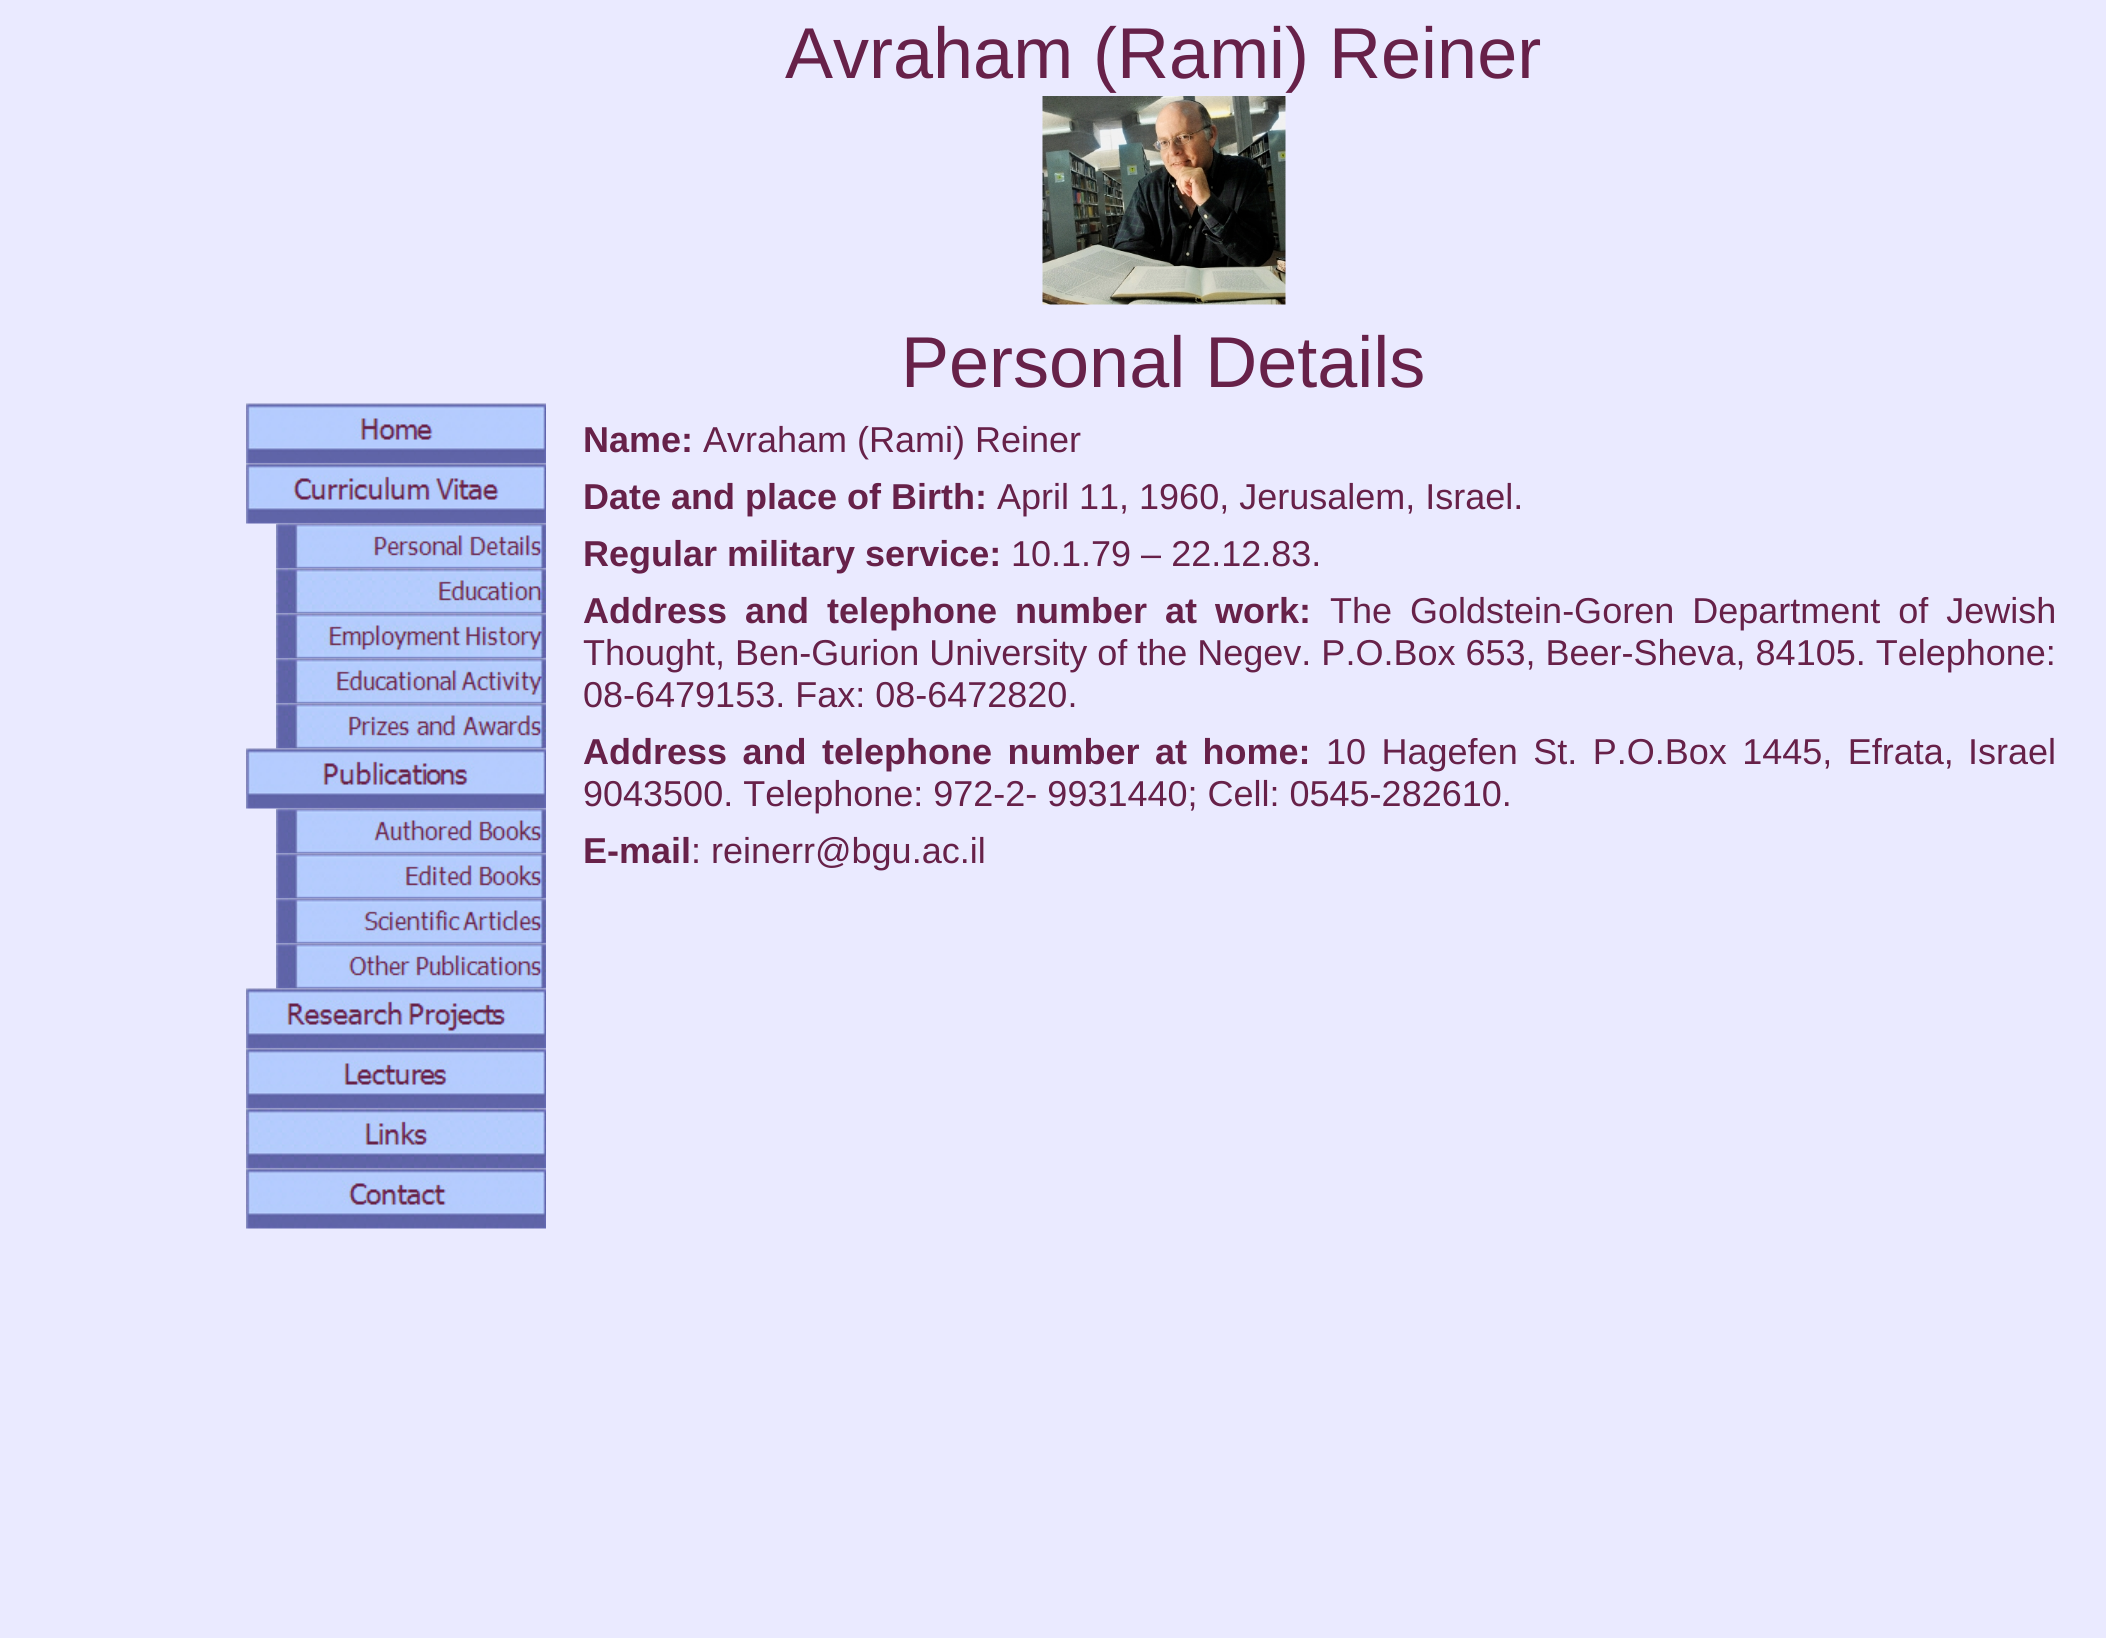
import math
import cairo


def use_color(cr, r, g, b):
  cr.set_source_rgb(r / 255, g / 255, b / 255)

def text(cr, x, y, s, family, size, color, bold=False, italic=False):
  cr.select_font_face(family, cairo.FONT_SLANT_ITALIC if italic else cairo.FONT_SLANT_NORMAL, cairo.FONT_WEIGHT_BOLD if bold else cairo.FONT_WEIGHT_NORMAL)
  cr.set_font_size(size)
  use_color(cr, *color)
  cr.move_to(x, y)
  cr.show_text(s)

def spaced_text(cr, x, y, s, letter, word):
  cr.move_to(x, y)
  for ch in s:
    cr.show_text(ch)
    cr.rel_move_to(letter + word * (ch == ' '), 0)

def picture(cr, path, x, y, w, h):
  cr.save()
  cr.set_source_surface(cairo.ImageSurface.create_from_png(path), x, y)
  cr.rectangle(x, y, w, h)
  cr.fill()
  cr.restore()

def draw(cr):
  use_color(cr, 234, 234, 255)
  cr.paint()
  picture(cr, "img_01.png", 1042, 96, 244, 209)
  picture(cr, "img_02.png", 246, 403, 300, 61)
  picture(cr, "img_03.png", 246, 463, 300, 61)
  picture(cr, "img_04.png", 276, 523, 270, 46)
  picture(cr, "img_05.png", 276, 568, 270, 46)
  picture(cr, "img_06.png", 276, 613, 270, 46)
  picture(cr, "img_07.png", 276, 658, 270, 46)
  picture(cr, "img_08.png", 276, 703, 270, 46)
  picture(cr, "img_09.png", 246, 748, 300, 61)
  picture(cr, "img_10.png", 276, 808, 270, 46)
  picture(cr, "img_11.png", 276, 853, 270, 46)
  picture(cr, "img_12.png", 276, 898, 270, 46)
  picture(cr, "img_13.png", 276, 943, 270, 46)
  picture(cr, "img_14.png", 246, 988, 300, 61)
  picture(cr, "img_15.png", 246, 1048, 300, 61)
  picture(cr, "img_16.png", 246, 1108, 300, 61)
  picture(cr, "img_17.png", 246, 1168, 300, 61)
  text(cr, 785, 78, "Avraham (Rami) Reiner", "Liberation Sans", 72, (103, 33, 73))
  text(cr, 901, 387, "Personal Details", "Liberation Sans", 72, (103, 33, 73))
  text(cr, 583, 452, "Name:", "Liberation Sans", 36, (103, 33, 73), bold=True)
  text(cr, 703, 452, "Avraham (Rami) Reiner", "Liberation Sans", 36, (103, 33, 73))
  text(cr, 583, 509, "Date and place of Birth:", "Liberation Sans", 36, (103, 33, 73), bold=True)
  text(cr, 997, 509, "April 11, 1960, Jerusalem, Israel.", "Liberation Sans", 36, (103, 33, 73))
  text(cr, 583, 566, "Regular military service:", "Liberation Sans", 36, (103, 33, 73), bold=True)
  text(cr, 1011, 566, "10.1.79 – 22.12.83.", "Liberation Sans", 36, (103, 33, 73))
  cr.select_font_face("Liberation Sans", cairo.FONT_SLANT_NORMAL, cairo.FONT_WEIGHT_BOLD)
  spaced_text(cr, 583, 623, "Address and", 0, 8)
  spaced_text(cr, 827, 623, "telephone number at work:", 0, 8)
  cr.select_font_face("Liberation Sans")
  spaced_text(cr, 1330, 623, "The Goldstein-Goren Department of Jewish", 0, 8)
  text(cr, 583, 665, "Thought, Ben-Gurion University of the Negev. P.O.Box 653, Beer-Sheva, 84105. Telephone:", "Liberation Sans", 36, (103, 33, 73))
  text(cr, 583, 707, "08-6479153. Fax: 08-6472820.", "Liberation Sans", 36, (103, 33, 73))
  cr.select_font_face("Liberation Sans", cairo.FONT_SLANT_NORMAL, cairo.FONT_WEIGHT_BOLD)
  spaced_text(cr, 583, 764, "Address and", 0, 5.5)
  spaced_text(cr, 822, 764, "telephone number at home:", 0, 5.5)
  cr.select_font_face("Liberation Sans")
  spaced_text(cr, 1326, 764, "10 Hagefen St. P.O.Box 1445, Efrata,", 0, 5.5)
  text(cr, 1968, 764, "Israel", "Liberation Sans", 36, (103, 33, 73))
  text(cr, 583, 806, "9043500. Telephone: 972-2- 9931440; Cell: 0545-282610.", "Liberation Sans", 36, (103, 33, 73))
  text(cr, 583, 863, "E-mail", "Liberation Sans", 36, (103, 33, 73), bold=True)
  text(cr, 691, 863, ": reinerr@bgu.ac.il", "Liberation Sans", 36, (103, 33, 73))


surface = cairo.ImageSurface(cairo.FORMAT_RGB24, 2106, 1638)
cr = cairo.Context(surface)
options = cairo.FontOptions()
options.set_hint_metrics(cairo.HINT_METRICS_OFF)
options.set_hint_style(cairo.HINT_STYLE_NONE)
cr.set_font_options(options)
cr.set_miter_limit(4)
draw(cr)
surface.write_to_png("out.png")
